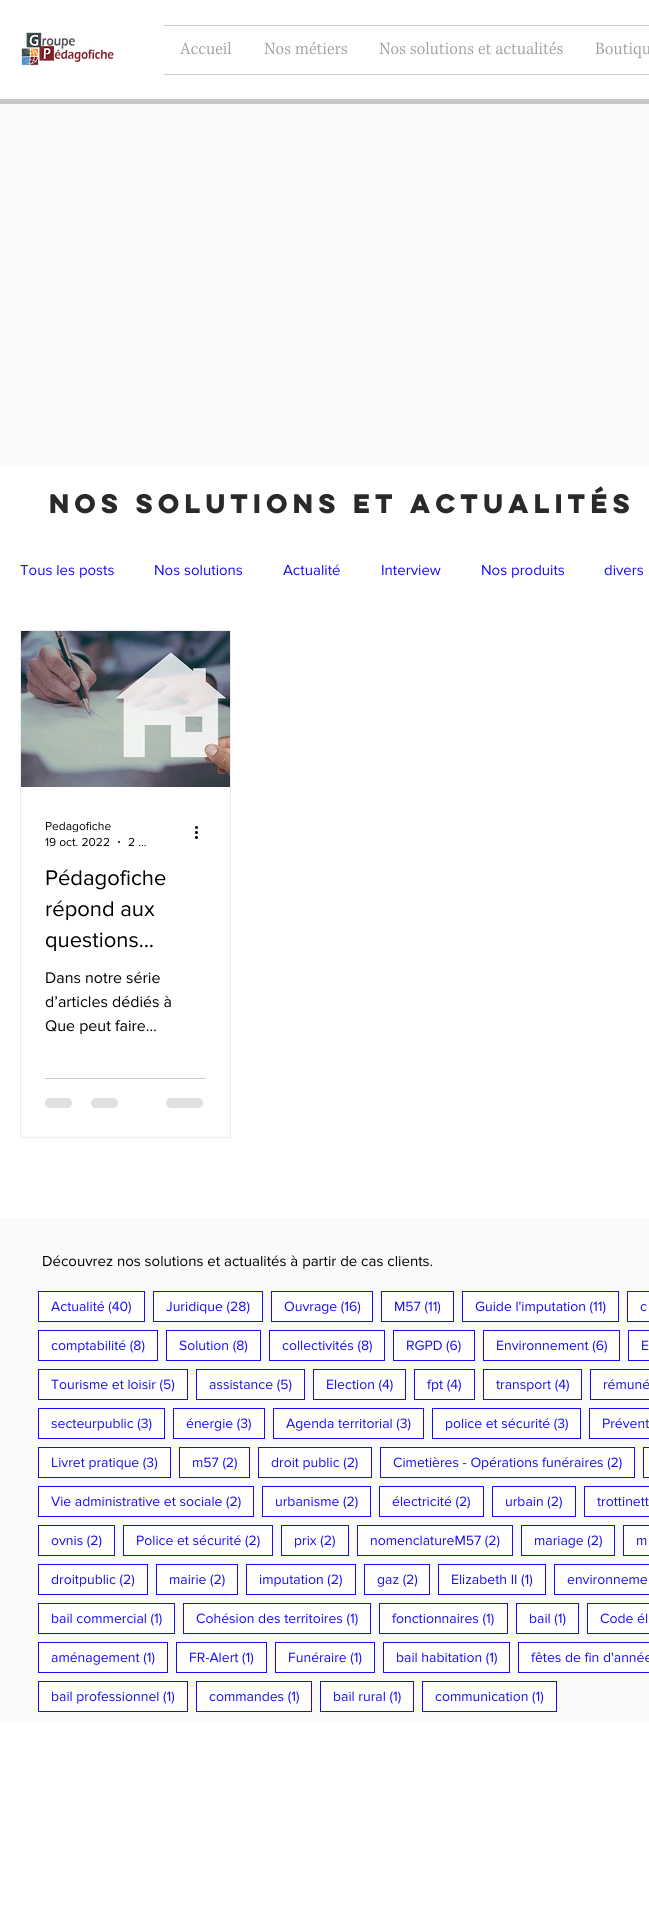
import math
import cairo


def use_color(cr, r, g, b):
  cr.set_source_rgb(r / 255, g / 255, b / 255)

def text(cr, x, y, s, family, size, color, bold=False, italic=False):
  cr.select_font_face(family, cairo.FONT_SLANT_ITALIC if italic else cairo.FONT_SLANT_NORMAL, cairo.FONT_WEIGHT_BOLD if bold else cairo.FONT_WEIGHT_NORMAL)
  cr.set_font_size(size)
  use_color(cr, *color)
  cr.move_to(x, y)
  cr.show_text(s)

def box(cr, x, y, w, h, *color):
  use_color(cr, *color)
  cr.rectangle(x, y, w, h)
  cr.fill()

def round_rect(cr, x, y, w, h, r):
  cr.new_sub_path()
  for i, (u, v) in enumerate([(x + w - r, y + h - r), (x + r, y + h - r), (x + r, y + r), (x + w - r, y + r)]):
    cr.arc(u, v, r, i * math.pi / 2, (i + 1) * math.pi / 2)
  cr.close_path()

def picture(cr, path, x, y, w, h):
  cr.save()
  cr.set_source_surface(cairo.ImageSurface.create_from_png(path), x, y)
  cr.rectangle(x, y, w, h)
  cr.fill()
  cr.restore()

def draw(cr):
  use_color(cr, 255, 255, 255)
  cr.paint()
  picture(cr, "img_01.png", 21, 32, 93, 34)
  box(cr, 164, 25, 485, 1, 202, 202, 202)
  box(cr, 164, 74, 485, 1, 202, 202, 202)
  picture(cr, "img_02.png", 179, 42, 53, 13)
  picture(cr, "img_03.png", 264, 41, 83, 14)
  picture(cr, "img_04.png", 379, 41, 184, 14)
  picture(cr, "img_05.png", 595, 42, 54, 17)
  box(cr, 0, 99, 649, 5, 199, 199, 199)
  box(cr, 0, 104, 649, 362, 250, 250, 250)
  cr.rectangle(20.5, 630.5, 210, 507)
  use_color(cr, 238, 236, 236)
  cr.set_line_width(1)
  cr.stroke()
  picture(cr, "img_06.png", 21, 631, 209, 156)
  use_color(cr, 0, 0, 0)
  cr.arc(119, 842, 1, 0, 2 * math.pi)
  cr.fill()
  picture(cr, "img_07.png", 195, 826, 3, 13)
  box(cr, 45, 1078, 161, 1, 204, 204, 204)
  use_color(cr, 224, 224, 224)
  round_rect(cr, 45, 1098, 27, 10, 5)
  cr.fill()
  round_rect(cr, 91, 1098, 27, 10, 5)
  cr.fill()
  round_rect(cr, 166, 1098, 37, 10, 5)
  cr.fill()
  box(cr, 0, 1218, 649, 504, 250, 250, 250)
  use_color(cr, 255, 255, 255)
  cr.rectangle(38.5, 1291.5, 106, 30)
  cr.fill_preserve()
  use_color(cr, 23, 13, 242)
  cr.stroke()
  use_color(cr, 255, 255, 255)
  cr.rectangle(153.5, 1291.5, 109, 30)
  cr.fill_preserve()
  use_color(cr, 23, 13, 242)
  cr.stroke()
  use_color(cr, 255, 255, 255)
  cr.rectangle(271.5, 1291.5, 101, 30)
  cr.fill_preserve()
  use_color(cr, 23, 13, 242)
  cr.stroke()
  use_color(cr, 255, 255, 255)
  cr.rectangle(381.5, 1291.5, 72, 30)
  cr.fill_preserve()
  use_color(cr, 23, 13, 242)
  cr.stroke()
  use_color(cr, 255, 255, 255)
  cr.rectangle(462.5, 1291.5, 156, 30)
  cr.fill_preserve()
  use_color(cr, 23, 13, 242)
  cr.stroke()
  use_color(cr, 255, 255, 255)
  cr.rectangle(627.5, 1291.5, 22, 30)
  cr.fill_preserve()
  use_color(cr, 23, 13, 242)
  cr.stroke()
  use_color(cr, 255, 255, 255)
  cr.rectangle(38.5, 1330.5, 119, 30)
  cr.fill_preserve()
  use_color(cr, 23, 13, 242)
  cr.stroke()
  use_color(cr, 255, 255, 255)
  cr.rectangle(166.5, 1330.5, 94, 30)
  cr.fill_preserve()
  use_color(cr, 23, 13, 242)
  cr.stroke()
  use_color(cr, 255, 255, 255)
  cr.rectangle(269.5, 1330.5, 115, 30)
  cr.fill_preserve()
  use_color(cr, 23, 13, 242)
  cr.stroke()
  use_color(cr, 255, 255, 255)
  cr.rectangle(393.5, 1330.5, 81, 30)
  cr.fill_preserve()
  use_color(cr, 23, 13, 242)
  cr.stroke()
  use_color(cr, 255, 255, 255)
  cr.rectangle(483.5, 1330.5, 136, 30)
  cr.fill_preserve()
  use_color(cr, 23, 13, 242)
  cr.stroke()
  use_color(cr, 255, 255, 255)
  cr.rectangle(628.5, 1330.5, 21, 30)
  cr.fill_preserve()
  use_color(cr, 23, 13, 242)
  cr.stroke()
  use_color(cr, 255, 255, 255)
  cr.rectangle(38.5, 1369.5, 149, 30)
  cr.fill_preserve()
  use_color(cr, 23, 13, 242)
  cr.stroke()
  use_color(cr, 255, 255, 255)
  cr.rectangle(196.5, 1369.5, 108, 30)
  cr.fill_preserve()
  use_color(cr, 23, 13, 242)
  cr.stroke()
  use_color(cr, 255, 255, 255)
  cr.rectangle(313.5, 1369.5, 92, 30)
  cr.fill_preserve()
  use_color(cr, 23, 13, 242)
  cr.stroke()
  use_color(cr, 255, 255, 255)
  cr.rectangle(414.5, 1369.5, 60, 30)
  cr.fill_preserve()
  use_color(cr, 23, 13, 242)
  cr.stroke()
  use_color(cr, 255, 255, 255)
  cr.rectangle(483.5, 1369.5, 98, 30)
  cr.fill_preserve()
  use_color(cr, 23, 13, 242)
  cr.stroke()
  use_color(cr, 255, 255, 255)
  cr.rectangle(590.5, 1369.5, 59, 30)
  cr.fill_preserve()
  use_color(cr, 23, 13, 242)
  cr.stroke()
  use_color(cr, 255, 255, 255)
  cr.rectangle(38.5, 1408.5, 126, 30)
  cr.fill_preserve()
  use_color(cr, 23, 13, 242)
  cr.stroke()
  use_color(cr, 255, 255, 255)
  cr.rectangle(173.5, 1408.5, 91, 30)
  cr.fill_preserve()
  use_color(cr, 23, 13, 242)
  cr.stroke()
  use_color(cr, 255, 255, 255)
  cr.rectangle(273.5, 1408.5, 150, 30)
  cr.fill_preserve()
  use_color(cr, 23, 13, 242)
  cr.stroke()
  use_color(cr, 255, 255, 255)
  cr.rectangle(432.5, 1408.5, 148, 30)
  cr.fill_preserve()
  use_color(cr, 23, 13, 242)
  cr.stroke()
  use_color(cr, 255, 255, 255)
  cr.rectangle(589.5, 1408.5, 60, 30)
  cr.fill_preserve()
  use_color(cr, 23, 13, 242)
  cr.stroke()
  use_color(cr, 255, 255, 255)
  cr.rectangle(38.5, 1447.5, 132, 30)
  cr.fill_preserve()
  use_color(cr, 23, 13, 242)
  cr.stroke()
  use_color(cr, 255, 255, 255)
  cr.rectangle(179.5, 1447.5, 70, 30)
  cr.fill_preserve()
  use_color(cr, 23, 13, 242)
  cr.stroke()
  use_color(cr, 255, 255, 255)
  cr.rectangle(258.5, 1447.5, 113, 30)
  cr.fill_preserve()
  use_color(cr, 23, 13, 242)
  cr.stroke()
  use_color(cr, 255, 255, 255)
  cr.rectangle(380.5, 1447.5, 254, 30)
  cr.fill_preserve()
  use_color(cr, 23, 13, 242)
  cr.stroke()
  use_color(cr, 255, 255, 255)
  cr.rectangle(643.5, 1447.5, 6, 30)
  cr.fill_preserve()
  use_color(cr, 23, 13, 242)
  cr.stroke()
  use_color(cr, 255, 255, 255)
  cr.rectangle(38.5, 1486.5, 215, 30)
  cr.fill_preserve()
  use_color(cr, 23, 13, 242)
  cr.stroke()
  use_color(cr, 255, 255, 255)
  cr.rectangle(262.5, 1486.5, 108, 30)
  cr.fill_preserve()
  use_color(cr, 23, 13, 242)
  cr.stroke()
  use_color(cr, 255, 255, 255)
  cr.rectangle(379.5, 1486.5, 104, 30)
  cr.fill_preserve()
  use_color(cr, 23, 13, 242)
  cr.stroke()
  use_color(cr, 255, 255, 255)
  cr.rectangle(492.5, 1486.5, 83, 30)
  cr.fill_preserve()
  use_color(cr, 23, 13, 242)
  cr.stroke()
  use_color(cr, 255, 255, 255)
  cr.rectangle(584.5, 1486.5, 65, 30)
  cr.fill_preserve()
  use_color(cr, 23, 13, 242)
  cr.stroke()
  use_color(cr, 255, 255, 255)
  cr.rectangle(38.5, 1525.5, 76, 30)
  cr.fill_preserve()
  use_color(cr, 23, 13, 242)
  cr.stroke()
  use_color(cr, 255, 255, 255)
  cr.rectangle(123.5, 1525.5, 149, 30)
  cr.fill_preserve()
  use_color(cr, 23, 13, 242)
  cr.stroke()
  use_color(cr, 255, 255, 255)
  cr.rectangle(281.5, 1525.5, 67, 30)
  cr.fill_preserve()
  use_color(cr, 23, 13, 242)
  cr.stroke()
  use_color(cr, 255, 255, 255)
  cr.rectangle(357.5, 1525.5, 155, 30)
  cr.fill_preserve()
  use_color(cr, 23, 13, 242)
  cr.stroke()
  use_color(cr, 255, 255, 255)
  cr.rectangle(521.5, 1525.5, 93, 30)
  cr.fill_preserve()
  use_color(cr, 23, 13, 242)
  cr.stroke()
  use_color(cr, 255, 255, 255)
  cr.rectangle(623.5, 1525.5, 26, 30)
  cr.fill_preserve()
  use_color(cr, 23, 13, 242)
  cr.stroke()
  use_color(cr, 255, 255, 255)
  cr.rectangle(38.5, 1564.5, 109, 30)
  cr.fill_preserve()
  use_color(cr, 23, 13, 242)
  cr.stroke()
  use_color(cr, 255, 255, 255)
  cr.rectangle(156.5, 1564.5, 81, 30)
  cr.fill_preserve()
  use_color(cr, 23, 13, 242)
  cr.stroke()
  use_color(cr, 255, 255, 255)
  cr.rectangle(246.5, 1564.5, 109, 30)
  cr.fill_preserve()
  use_color(cr, 23, 13, 242)
  cr.stroke()
  use_color(cr, 255, 255, 255)
  cr.rectangle(364.5, 1564.5, 65, 30)
  cr.fill_preserve()
  use_color(cr, 23, 13, 242)
  cr.stroke()
  use_color(cr, 255, 255, 255)
  cr.rectangle(438.5, 1564.5, 107, 30)
  cr.fill_preserve()
  use_color(cr, 23, 13, 242)
  cr.stroke()
  use_color(cr, 255, 255, 255)
  cr.rectangle(554.5, 1564.5, 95, 30)
  cr.fill_preserve()
  use_color(cr, 23, 13, 242)
  cr.stroke()
  use_color(cr, 255, 255, 255)
  cr.rectangle(38.5, 1603.5, 136, 30)
  cr.fill_preserve()
  use_color(cr, 23, 13, 242)
  cr.stroke()
  use_color(cr, 255, 255, 255)
  cr.rectangle(183.5, 1603.5, 187, 30)
  cr.fill_preserve()
  use_color(cr, 23, 13, 242)
  cr.stroke()
  use_color(cr, 255, 255, 255)
  cr.rectangle(379.5, 1603.5, 128, 30)
  cr.fill_preserve()
  use_color(cr, 23, 13, 242)
  cr.stroke()
  use_color(cr, 255, 255, 255)
  cr.rectangle(516.5, 1603.5, 62, 30)
  cr.fill_preserve()
  use_color(cr, 23, 13, 242)
  cr.stroke()
  use_color(cr, 255, 255, 255)
  cr.rectangle(587.5, 1603.5, 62, 30)
  cr.fill_preserve()
  use_color(cr, 23, 13, 242)
  cr.stroke()
  use_color(cr, 255, 255, 255)
  cr.rectangle(38.5, 1642.5, 129, 30)
  cr.fill_preserve()
  use_color(cr, 23, 13, 242)
  cr.stroke()
  use_color(cr, 255, 255, 255)
  cr.rectangle(176.5, 1642.5, 90, 30)
  cr.fill_preserve()
  use_color(cr, 23, 13, 242)
  cr.stroke()
  use_color(cr, 255, 255, 255)
  cr.rectangle(275.5, 1642.5, 99, 30)
  cr.fill_preserve()
  use_color(cr, 23, 13, 242)
  cr.stroke()
  use_color(cr, 255, 255, 255)
  cr.rectangle(383.5, 1642.5, 126, 30)
  cr.fill_preserve()
  use_color(cr, 23, 13, 242)
  cr.stroke()
  use_color(cr, 255, 255, 255)
  cr.rectangle(518.5, 1642.5, 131, 30)
  cr.fill_preserve()
  use_color(cr, 23, 13, 242)
  cr.stroke()
  use_color(cr, 255, 255, 255)
  cr.rectangle(38.5, 1681.5, 149, 30)
  cr.fill_preserve()
  use_color(cr, 23, 13, 242)
  cr.stroke()
  use_color(cr, 255, 255, 255)
  cr.rectangle(196.5, 1681.5, 115, 30)
  cr.fill_preserve()
  use_color(cr, 23, 13, 242)
  cr.stroke()
  use_color(cr, 255, 255, 255)
  cr.rectangle(320.5, 1681.5, 93, 30)
  cr.fill_preserve()
  use_color(cr, 23, 13, 242)
  cr.stroke()
  use_color(cr, 255, 255, 255)
  cr.rectangle(422.5, 1681.5, 134, 30)
  cr.fill_preserve()
  use_color(cr, 23, 13, 242)
  cr.stroke()
  text(cr, 49, 513, "Nos solutions et actualités", "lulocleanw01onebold", 24, (41, 41, 41), bold=True)
  text(cr, 20, 575, "Tous les posts", "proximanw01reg", 15, (23, 13, 242))
  text(cr, 154, 575, "Nos solutions", "proximanw01reg", 15, (23, 13, 242))
  text(cr, 283, 575, "Actualité", "proximanw01reg", 15, (23, 13, 242))
  text(cr, 381, 575, "Interview", "proximanw01reg", 15, (23, 13, 242))
  text(cr, 481, 575, "Nos produits", "proximanw01reg", 15, (23, 13, 242))
  text(cr, 604, 575, "divers", "proximanw01reg", 15, (23, 13, 242))
  cr.save()
  cr.rectangle(45, 819, 66, 13)
  cr.clip()
  text(cr, 45, 830, "Pedagofiche", "proximanw01reg", 12, (0, 0, 0))
  cr.restore()
  text(cr, 45, 846, "19 oct. 2022", "proximanw01reg", 12, (0, 0, 0))
  text(cr, 128, 846, "2 …", "proximanw01reg", 12, (0, 0, 0))
  text(cr, 45, 885, "Pédagofiche", "proximanw01reg", 22, (0, 0, 0))
  text(cr, 45, 916, "répond aux", "proximanw01reg", 22, (0, 0, 0))
  text(cr, 45, 947, "questions…", "proximanw01reg", 22, (0, 0, 0))
  text(cr, 45, 983, "Dans notre série", "proximanw01reg", 16, (0, 0, 0))
  text(cr, 45, 1007, "d’articles dédiés à", "proximanw01reg", 16, (0, 0, 0))
  text(cr, 45, 1031, "Que peut faire…", "proximanw01reg", 16, (0, 0, 0))
  text(cr, 42, 1266, "Découvrez nos solutions et actualités à partir de cas clients.", "proximanw01reg", 15, (0, 0, 0))
  text(cr, 51, 1311, "Actualité (40)", "proximanw01reg", 14, (23, 13, 242))
  text(cr, 166, 1311, "Juridique (28)", "proximanw01reg", 14, (23, 13, 242))
  text(cr, 284, 1311, "Ouvrage (16)", "proximanw01reg", 14, (23, 13, 242))
  text(cr, 394, 1311, "M57 (11)", "proximanw01reg", 14, (23, 13, 242))
  text(cr, 475, 1311, "Guide l'imputation (11)", "proximanw01reg", 14, (23, 13, 242))
  text(cr, 640, 1311, "c", "proximanw01reg", 14, (23, 13, 242))
  text(cr, 51, 1350, "comptabilité (8)", "proximanw01reg", 14, (23, 13, 242))
  text(cr, 179, 1350, "Solution (8)", "proximanw01reg", 14, (23, 13, 242))
  text(cr, 282, 1350, "collectivités (8)", "proximanw01reg", 14, (23, 13, 242))
  text(cr, 406, 1350, "RGPD (6)", "proximanw01reg", 14, (23, 13, 242))
  text(cr, 496, 1350, "Environnement (6)", "proximanw01reg", 14, (23, 13, 242))
  text(cr, 641, 1350, "E", "proximanw01reg", 14, (23, 13, 242))
  text(cr, 51, 1389, "Tourisme et loisir (5)", "proximanw01reg", 14, (23, 13, 242))
  text(cr, 209, 1389, "assistance (5)", "proximanw01reg", 14, (23, 13, 242))
  text(cr, 326, 1389, "Election (4)", "proximanw01reg", 14, (23, 13, 242))
  text(cr, 427, 1389, "fpt (4)", "proximanw01reg", 14, (23, 13, 242))
  text(cr, 496, 1389, "transport (4)", "proximanw01reg", 14, (23, 13, 242))
  text(cr, 603, 1389, "rémuné", "proximanw01reg", 14, (23, 13, 242))
  text(cr, 51, 1428, "secteurpublic (3)", "proximanw01reg", 14, (23, 13, 242))
  text(cr, 186, 1428, "énergie (3)", "proximanw01reg", 14, (23, 13, 242))
  text(cr, 286, 1428, "Agenda territorial (3)", "proximanw01reg", 14, (23, 13, 242))
  text(cr, 445, 1428, "police et sécurité (3)", "proximanw01reg", 14, (23, 13, 242))
  text(cr, 602, 1428, "Prévent", "proximanw01reg", 14, (23, 13, 242))
  text(cr, 51, 1467, "Livret pratique (3)", "proximanw01reg", 14, (23, 13, 242))
  text(cr, 192, 1467, "m57 (2)", "proximanw01reg", 14, (23, 13, 242))
  text(cr, 271, 1467, "droit public (2)", "proximanw01reg", 14, (23, 13, 242))
  text(cr, 393, 1467, "Cimetières - Opérations funéraires (2)", "proximanw01reg", 14, (23, 13, 242))
  text(cr, 51, 1506, "Vie administrative et sociale (2)", "proximanw01reg", 14, (23, 13, 242))
  text(cr, 275, 1506, "urbanisme (2)", "proximanw01reg", 14, (23, 13, 242))
  text(cr, 392, 1506, "électricité (2)", "proximanw01reg", 14, (23, 13, 242))
  text(cr, 505, 1506, "urbain (2)", "proximanw01reg", 14, (23, 13, 242))
  text(cr, 597, 1506, "trottinett", "proximanw01reg", 14, (23, 13, 242))
  text(cr, 51, 1545, "ovnis (2)", "proximanw01reg", 14, (23, 13, 242))
  text(cr, 136, 1545, "Police et sécurité (2)", "proximanw01reg", 14, (23, 13, 242))
  text(cr, 294, 1545, "prix (2)", "proximanw01reg", 14, (23, 13, 242))
  text(cr, 370, 1545, "nomenclatureM57 (2)", "proximanw01reg", 14, (23, 13, 242))
  text(cr, 534, 1545, "mariage (2)", "proximanw01reg", 14, (23, 13, 242))
  text(cr, 636, 1545, "m", "proximanw01reg", 14, (23, 13, 242))
  text(cr, 51, 1584, "droitpublic (2)", "proximanw01reg", 14, (23, 13, 242))
  text(cr, 169, 1584, "mairie (2)", "proximanw01reg", 14, (23, 13, 242))
  text(cr, 259, 1584, "imputation (2)", "proximanw01reg", 14, (23, 13, 242))
  text(cr, 377, 1584, "gaz (2)", "proximanw01reg", 14, (23, 13, 242))
  text(cr, 451, 1584, "Elizabeth II (1)", "proximanw01reg", 14, (23, 13, 242))
  text(cr, 567, 1584, "environneme", "proximanw01reg", 14, (23, 13, 242))
  text(cr, 51, 1623, "bail commercial (1)", "proximanw01reg", 14, (23, 13, 242))
  text(cr, 196, 1623, "Cohésion des territoires (1)", "proximanw01reg", 14, (23, 13, 242))
  text(cr, 392, 1623, "fonctionnaires (1)", "proximanw01reg", 14, (23, 13, 242))
  text(cr, 529, 1623, "bail (1)", "proximanw01reg", 14, (23, 13, 242))
  text(cr, 600, 1623, "Code él", "proximanw01reg", 14, (23, 13, 242))
  text(cr, 51, 1662, "aménagement (1)", "proximanw01reg", 14, (23, 13, 242))
  text(cr, 189, 1662, "FR-Alert (1)", "proximanw01reg", 14, (23, 13, 242))
  text(cr, 288, 1662, "Funéraire (1)", "proximanw01reg", 14, (23, 13, 242))
  text(cr, 396, 1662, "bail habitation (1)", "proximanw01reg", 14, (23, 13, 242))
  text(cr, 531, 1662, "fêtes de fin d'année", "proximanw01reg", 14, (23, 13, 242))
  text(cr, 51, 1701, "bail professionnel (1)", "proximanw01reg", 14, (23, 13, 242))
  text(cr, 209, 1701, "commandes (1)", "proximanw01reg", 14, (23, 13, 242))
  text(cr, 333, 1701, "bail rural (1)", "proximanw01reg", 14, (23, 13, 242))
  text(cr, 435, 1701, "communication (1)", "proximanw01reg", 14, (23, 13, 242))


surface = cairo.ImageSurface(cairo.FORMAT_RGB24, 649, 1926)
cr = cairo.Context(surface)
options = cairo.FontOptions()
options.set_hint_metrics(cairo.HINT_METRICS_OFF)
options.set_hint_style(cairo.HINT_STYLE_NONE)
cr.set_font_options(options)
cr.set_miter_limit(4)
draw(cr)
surface.write_to_png("out.png")
